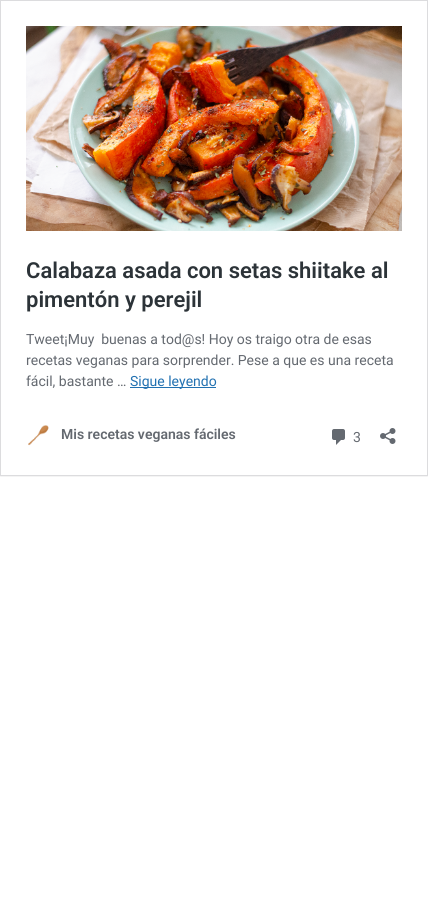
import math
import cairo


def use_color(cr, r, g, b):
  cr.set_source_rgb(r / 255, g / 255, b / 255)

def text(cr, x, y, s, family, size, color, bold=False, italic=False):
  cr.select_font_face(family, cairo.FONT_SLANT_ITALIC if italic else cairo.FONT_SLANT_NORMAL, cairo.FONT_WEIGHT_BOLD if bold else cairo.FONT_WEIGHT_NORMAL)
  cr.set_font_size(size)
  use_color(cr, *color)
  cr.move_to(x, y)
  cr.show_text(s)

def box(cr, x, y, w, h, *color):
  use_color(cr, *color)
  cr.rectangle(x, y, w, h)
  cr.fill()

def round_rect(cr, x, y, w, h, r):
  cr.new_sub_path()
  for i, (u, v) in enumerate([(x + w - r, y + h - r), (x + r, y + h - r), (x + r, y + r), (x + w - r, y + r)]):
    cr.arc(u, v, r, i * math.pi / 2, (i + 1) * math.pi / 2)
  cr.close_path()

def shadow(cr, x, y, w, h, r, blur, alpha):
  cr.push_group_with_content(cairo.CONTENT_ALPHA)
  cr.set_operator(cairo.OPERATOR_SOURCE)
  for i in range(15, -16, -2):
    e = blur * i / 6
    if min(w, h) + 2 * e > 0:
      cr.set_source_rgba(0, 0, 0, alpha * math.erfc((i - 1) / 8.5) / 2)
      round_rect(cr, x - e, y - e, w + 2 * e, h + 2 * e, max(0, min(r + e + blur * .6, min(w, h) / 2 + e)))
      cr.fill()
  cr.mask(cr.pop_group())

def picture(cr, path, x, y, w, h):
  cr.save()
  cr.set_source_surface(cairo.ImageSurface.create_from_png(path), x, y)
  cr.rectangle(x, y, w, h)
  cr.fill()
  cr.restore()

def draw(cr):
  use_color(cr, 255, 255, 255)
  cr.paint()
  cr.save()
  cr.rectangle(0, 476, 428, 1)
  cr.clip()
  use_color(cr, 0, 0, 0)
  shadow(cr, 0, 1, 428, 476, 0, 0.5, 0.05)
  cr.restore()
  cr.rectangle(0.5, 0.5, 427, 475)
  use_color(cr, 220, 220, 222)
  cr.set_line_width(1)
  cr.stroke()
  picture(cr, "img_01.png", 26, 26, 376, 205)
  box(cr, 130, 387, 86, 1, 34, 113, 177)
  picture(cr, "img_02.png", 28, 425, 21, 21)
  picture(cr, "img_03.png", 332, 429, 13, 16)
  picture(cr, "img_04.png", 380, 428, 16, 16)
  text(cr, 26, 278, "Calabaza asada con setas shiitake al", "Roboto SemiBold", 22, (44, 51, 56))
  text(cr, 26, 307, "pimentón y perejil", "Roboto SemiBold", 22, (44, 51, 56))
  text(cr, 26, 344, "Tweet¡Muy  buenas a tod@s! Hoy os traigo otra de esas", "Roboto", 14, (100, 105, 112))
  text(cr, 26, 365, "recetas veganas para sorprender. Pese a que es una receta", "Roboto", 14, (100, 105, 112))
  text(cr, 26, 386, "fácil, bastante …", "Roboto", 14, (100, 105, 112))
  text(cr, 130, 386, "Sigue leyendo", "Roboto", 14, (34, 113, 177))
  text(cr, 61, 439, "Mis recetas veganas fáciles", "Roboto SemiBold", 14, (100, 105, 112))
  text(cr, 353, 442, "3", "Roboto", 14, (100, 105, 112))


surface = cairo.ImageSurface(cairo.FORMAT_RGB24, 428, 901)
cr = cairo.Context(surface)
options = cairo.FontOptions()
options.set_hint_metrics(cairo.HINT_METRICS_OFF)
options.set_hint_style(cairo.HINT_STYLE_NONE)
cr.set_font_options(options)
cr.set_miter_limit(4)
draw(cr)
surface.write_to_png("out.png")
